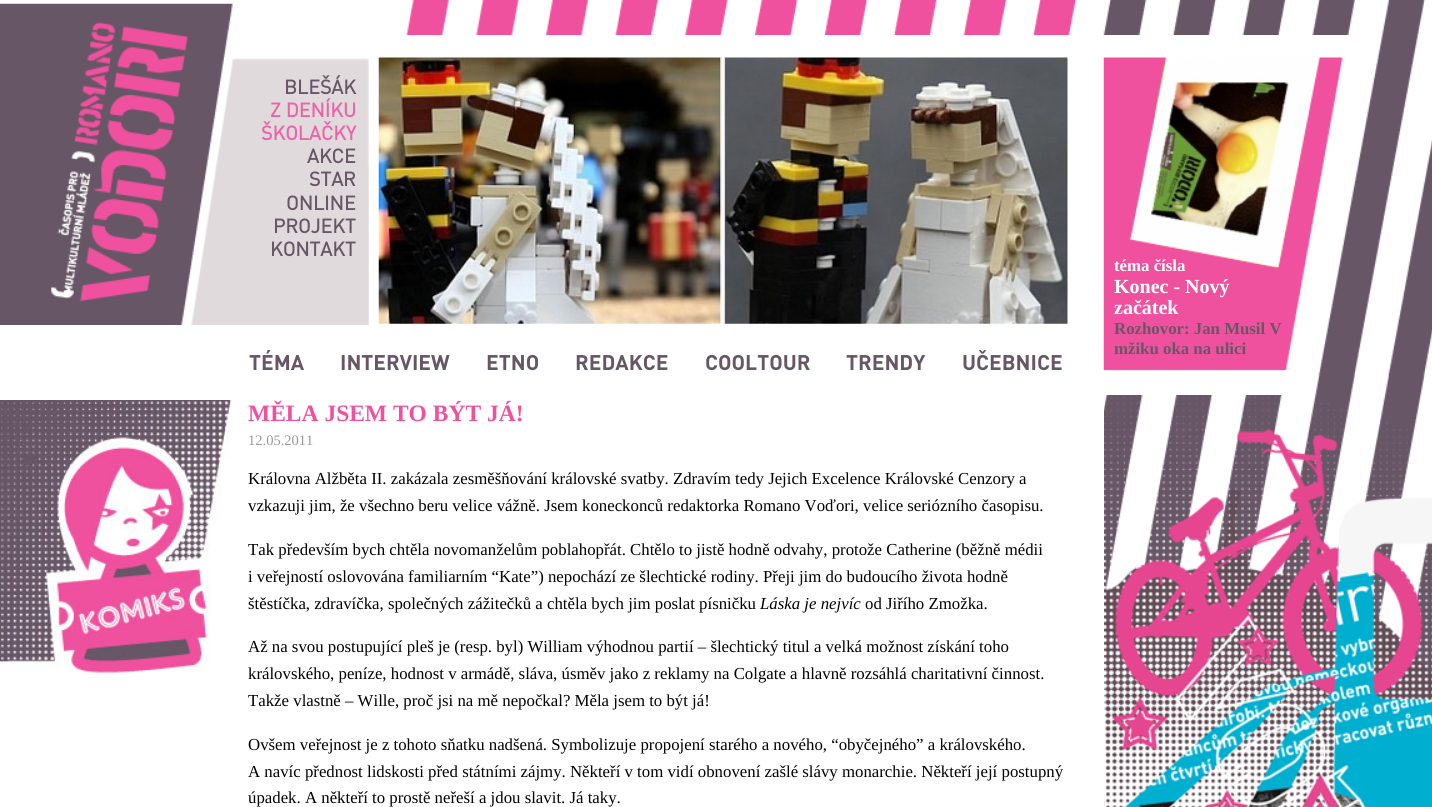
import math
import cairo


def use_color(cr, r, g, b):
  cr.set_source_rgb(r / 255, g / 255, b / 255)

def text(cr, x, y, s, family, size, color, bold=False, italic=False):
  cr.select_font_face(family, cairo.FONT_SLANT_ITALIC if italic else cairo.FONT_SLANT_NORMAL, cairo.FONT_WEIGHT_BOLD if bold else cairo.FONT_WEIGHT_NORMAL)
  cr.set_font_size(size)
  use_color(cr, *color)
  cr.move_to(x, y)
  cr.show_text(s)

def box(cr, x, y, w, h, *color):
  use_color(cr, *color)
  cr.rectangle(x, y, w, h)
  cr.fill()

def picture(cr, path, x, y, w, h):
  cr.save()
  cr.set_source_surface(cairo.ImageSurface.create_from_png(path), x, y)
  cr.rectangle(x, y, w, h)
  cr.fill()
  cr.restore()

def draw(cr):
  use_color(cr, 255, 255, 255)
  cr.paint()
  picture(cr, "img_01.png", 1077, 0, 355, 807)
  picture(cr, "img_02.png", 388, 0, 689, 35)
  picture(cr, "img_03.png", 1104, 396, 328, 411)
  box(cr, 1077, 35, 27, 772, 255, 255, 255)
  picture(cr, "img_04.png", 0, 3, 369, 322)
  picture(cr, "img_06.png", 1130, 57, 190, 211)
  picture(cr, "img_05.png", 1103, 35, 246, 360)
  picture(cr, "img_07.png", 0, 400, 232, 273)
  picture(cr, "img_08.png", 378, 57, 690, 267)
  text(cr, 284, 94, "BLEŠÁK", "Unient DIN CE", 19.5, (103, 87, 102), bold=True)
  text(cr, 270, 117, "Z DENÍKU", "Unient DIN CE", 19.5, (237, 98, 166), bold=True)
  text(cr, 261, 140, "ŠKOLAČKY", "Unient DIN CE", 19.5, (237, 98, 166), bold=True)
  text(cr, 307, 163, "AKCE", "Unient DIN CE", 19.5, (103, 87, 102), bold=True)
  text(cr, 309, 186, "STAR", "Unient DIN CE", 19.5, (103, 87, 102), bold=True)
  text(cr, 286, 210, "ONLINE", "Unient DIN CE", 19.5, (103, 87, 102), bold=True)
  text(cr, 273, 233, "PROJEKT", "Unient DIN CE", 19.5, (103, 87, 102), bold=True)
  text(cr, 270, 256, "KONTAKT", "Unient DIN CE", 19.5, (103, 87, 102), bold=True)
  text(cr, 1114, 271, "téma čísla", "Liberation Serif", 16.8, (255, 255, 255), bold=True)
  text(cr, 1114, 293, "Konec - Nový", "Liberation Serif", 20, (255, 255, 255), bold=True)
  text(cr, 1114, 314, "začátek", "Liberation Serif", 20, (255, 255, 255), bold=True)
  text(cr, 1114, 334, "Rozhovor: Jan Musil V", "Liberation Serif", 16.8, (103, 87, 102), bold=True)
  text(cr, 1114, 354, "mžiku oka na ulici", "Liberation Serif", 16.8, (103, 87, 102), bold=True)
  text(cr, 249, 370, "TÉMA", "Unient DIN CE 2", 21, (103, 87, 102), bold=True)
  text(cr, 340, 370, "INTERVIEW", "Unient DIN CE 2", 21, (103, 87, 102), bold=True)
  text(cr, 486, 370, "ETNO", "Unient DIN CE 2", 21, (103, 87, 102), bold=True)
  text(cr, 575, 370, "REDAKCE", "Unient DIN CE 2", 21, (103, 87, 102), bold=True)
  text(cr, 705, 370, "COOLTOUR", "Unient DIN CE 2", 21, (103, 87, 102), bold=True)
  text(cr, 846, 370, "TRENDY", "Unient DIN CE 2", 21, (103, 87, 102), bold=True)
  text(cr, 962, 370, "UČEBNICE", "Unient DIN CE 2", 21, (103, 87, 102), bold=True)
  text(cr, 248, 421, "MĚLA JSEM TO BÝT JÁ!", "Liberation Serif", 23.5, (239, 81, 158), bold=True)
  text(cr, 248, 445, "12.05.2011", "Liberation Serif", 14.5, (153, 153, 153))
  text(cr, 248, 484, "Královna Alžběta II. zakázala zesměšňování královské svatby. Zdravím tedy Jejich Excelence Královské Cenzory a", "Liberation Serif", 16.8, (0, 0, 0))
  text(cr, 248, 511, "vzkazuji jim, že všechno beru velice vážně. Jsem koneckonců redaktorka Romano Voďori, velice seriózního časopisu.", "Liberation Serif", 16.8, (0, 0, 0))
  text(cr, 248, 555, "Tak především bych chtěla novomanželům poblahopřát. Chtělo to jistě hodně odvahy, protože Catherine (běžně médii", "Liberation Serif", 16.8, (0, 0, 0))
  text(cr, 248, 582, "i veřejností oslovována familiarním “Kate”) nepochází ze šlechtické rodiny. Přeji jim do budoucího života hodně", "Liberation Serif", 16.8, (0, 0, 0))
  text(cr, 248, 609, "štěstíčka, zdravíčka, společných zážitečků a chtěla bych jim poslat písničku", "Liberation Serif", 16.8, (0, 0, 0))
  text(cr, 760, 609, "Láska je nejvíc", "Liberation Serif", 16.8, (0, 0, 0), italic=True)
  text(cr, 865, 609, "od Jiřího Zmožka.", "Liberation Serif", 16.8, (0, 0, 0))
  text(cr, 248, 652, "Až na svou postupující pleš je (resp. byl) William výhodnou partií – šlechtický titul a velká možnost získání toho", "Liberation Serif", 16.8, (0, 0, 0))
  text(cr, 248, 679, "královského, peníze, hodnost v armádě, sláva, úsměv jako z reklamy na Colgate a hlavně rozsáhlá charitativní činnost.", "Liberation Serif", 16.8, (0, 0, 0))
  text(cr, 248, 706, "Takže vlastně – Wille, proč jsi na mě nepočkal? Měla jsem to být já!", "Liberation Serif", 16.8, (0, 0, 0))
  text(cr, 248, 750, "Ovšem veřejnost je z tohoto sňatku nadšená. Symbolizuje propojení starého a nového, “obyčejného” a královského.", "Liberation Serif", 16.8, (0, 0, 0))
  text(cr, 248, 777, "A navíc přednost lidskosti před státními zájmy. Někteří v tom vidí obnovení zašlé slávy monarchie. Někteří její postupný", "Liberation Serif", 16.8, (0, 0, 0))
  text(cr, 248, 803, "úpadek. A někteří to prostě neřeší a jdou slavit. Já taky.", "Liberation Serif", 16.8, (0, 0, 0))


surface = cairo.ImageSurface(cairo.FORMAT_RGB24, 1432, 807)
cr = cairo.Context(surface)
options = cairo.FontOptions()
options.set_hint_metrics(cairo.HINT_METRICS_OFF)
options.set_hint_style(cairo.HINT_STYLE_NONE)
cr.set_font_options(options)
cr.set_miter_limit(4)
draw(cr)
surface.write_to_png("out.png")
